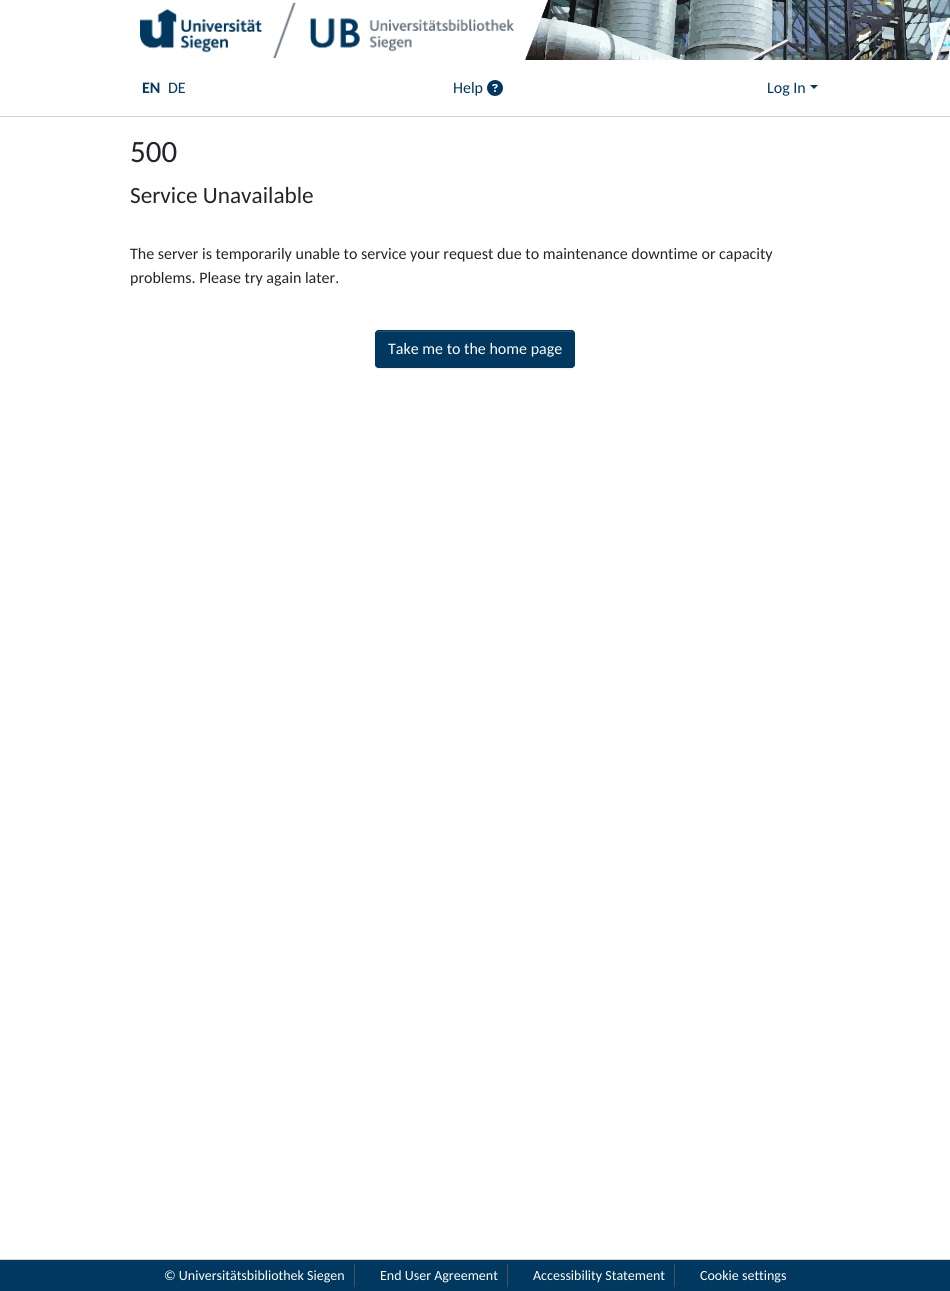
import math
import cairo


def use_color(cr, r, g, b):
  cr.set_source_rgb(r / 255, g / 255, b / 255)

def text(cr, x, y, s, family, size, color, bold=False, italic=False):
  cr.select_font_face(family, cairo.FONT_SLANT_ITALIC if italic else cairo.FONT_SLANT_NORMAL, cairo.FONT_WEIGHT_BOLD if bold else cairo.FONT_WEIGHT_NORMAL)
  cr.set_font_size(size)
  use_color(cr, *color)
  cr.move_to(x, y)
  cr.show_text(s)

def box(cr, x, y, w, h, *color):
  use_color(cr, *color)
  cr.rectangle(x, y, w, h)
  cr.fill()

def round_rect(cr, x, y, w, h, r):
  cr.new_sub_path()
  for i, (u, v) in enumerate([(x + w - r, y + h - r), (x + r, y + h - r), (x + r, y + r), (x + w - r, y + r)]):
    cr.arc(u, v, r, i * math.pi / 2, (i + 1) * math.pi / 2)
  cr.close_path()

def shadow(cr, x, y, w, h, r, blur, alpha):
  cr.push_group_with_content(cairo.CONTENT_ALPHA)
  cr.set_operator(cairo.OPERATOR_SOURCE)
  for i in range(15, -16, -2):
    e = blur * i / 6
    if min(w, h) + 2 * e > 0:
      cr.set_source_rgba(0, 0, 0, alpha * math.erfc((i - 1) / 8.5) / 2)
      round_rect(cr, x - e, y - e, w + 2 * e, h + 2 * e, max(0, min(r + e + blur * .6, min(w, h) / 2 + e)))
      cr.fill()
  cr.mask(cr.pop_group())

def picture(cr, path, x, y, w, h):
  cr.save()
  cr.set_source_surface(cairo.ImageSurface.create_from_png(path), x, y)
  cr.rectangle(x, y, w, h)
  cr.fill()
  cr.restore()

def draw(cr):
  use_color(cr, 255, 255, 255)
  cr.paint()
  box(cr, 0, 116, 950, 1, 206, 212, 218)
  picture(cr, "img_01.png", 140, 3, 374, 55)
  picture(cr, "img_02.png", 524, 0, 426, 60)
  picture(cr, "img_03.png", 487, 80, 16, 16)
  use_color(cr, 0, 56, 95)
  cr.new_path()
  cr.move_to(810, 85)
  cr.line_to(818, 85)
  cr.line_to(814, 89)
  cr.close_path()
  cr.fill()
  use_color(cr, 0, 0, 0)
  shadow(cr, 375, 331, 200, 38, 4, 0.5, 0.07)
  use_color(cr, 0, 56, 95)
  round_rect(cr, 375, 330, 200, 38, 4)
  cr.fill()
  use_color(cr, 38, 86, 119)
  cr.new_path()
  cr.move_to(379, 332)
  cr.line_to(571, 332)
  cr.curve_to(573, 332, 574, 333, 574, 335)
  cr.curve_to(574, 333, 573, 331, 571, 331)
  cr.line_to(379, 331)
  cr.curve_to(377, 331, 376, 333, 376, 335)
  cr.curve_to(376, 333, 377, 332, 379, 332)
  cr.close_path()
  cr.fill()
  round_rect(cr, 375.5, 330.5, 199, 37, 3.5)
  use_color(cr, 0, 56, 95)
  cr.set_line_width(1)
  cr.stroke()
  box(cr, 0, 1260, 950, 31, 0, 56, 95)
  box(cr, 0, 1259, 950, 1, 206, 212, 218)
  box(cr, 354, 1264, 1, 23, 73, 80, 87)
  box(cr, 507, 1264, 1, 23, 73, 80, 87)
  box(cr, 674, 1264, 1, 23, 73, 80, 87)
  text(cr, 142, 93, "EN", "Carlito", 16, (0, 56, 95), bold=True)
  text(cr, 168, 93, "DE", "Carlito", 16, (0, 56, 95))
  text(cr, 453, 93, "Help", "Carlito", 16, (0, 56, 95))
  text(cr, 767, 93, "Log In", "Carlito", 16, (0, 56, 95))
  text(cr, 130, 162, "500", "Carlito", 31, (33, 37, 41))
  text(cr, 130, 203, "Service Unavailable", "Carlito", 23.25, (33, 37, 41))
  text(cr, 130, 259, "The server is temporarily unable to service your request due to maintenance downtime or capacity", "Carlito", 16, (33, 37, 41))
  text(cr, 130, 283, "problems. Please try again later.", "Carlito", 16, (33, 37, 41))
  text(cr, 388, 354, "Take me to the home page", "Carlito", 16, (255, 255, 255))
  text(cr, 164, 1280, "© Universitätsbibliothek Siegen", "Carlito", 14, (255, 255, 255))
  text(cr, 380, 1280, "End User Agreement", "Carlito", 14, (255, 255, 255))
  text(cr, 533, 1280, "Accessibility Statement", "Carlito", 14, (255, 255, 255))
  text(cr, 700, 1280, "Cookie settings", "Carlito", 14, (255, 255, 255))


surface = cairo.ImageSurface(cairo.FORMAT_RGB24, 950, 1291)
cr = cairo.Context(surface)
options = cairo.FontOptions()
options.set_hint_metrics(cairo.HINT_METRICS_OFF)
options.set_hint_style(cairo.HINT_STYLE_NONE)
cr.set_font_options(options)
cr.set_miter_limit(4)
draw(cr)
surface.write_to_png("out.png")
